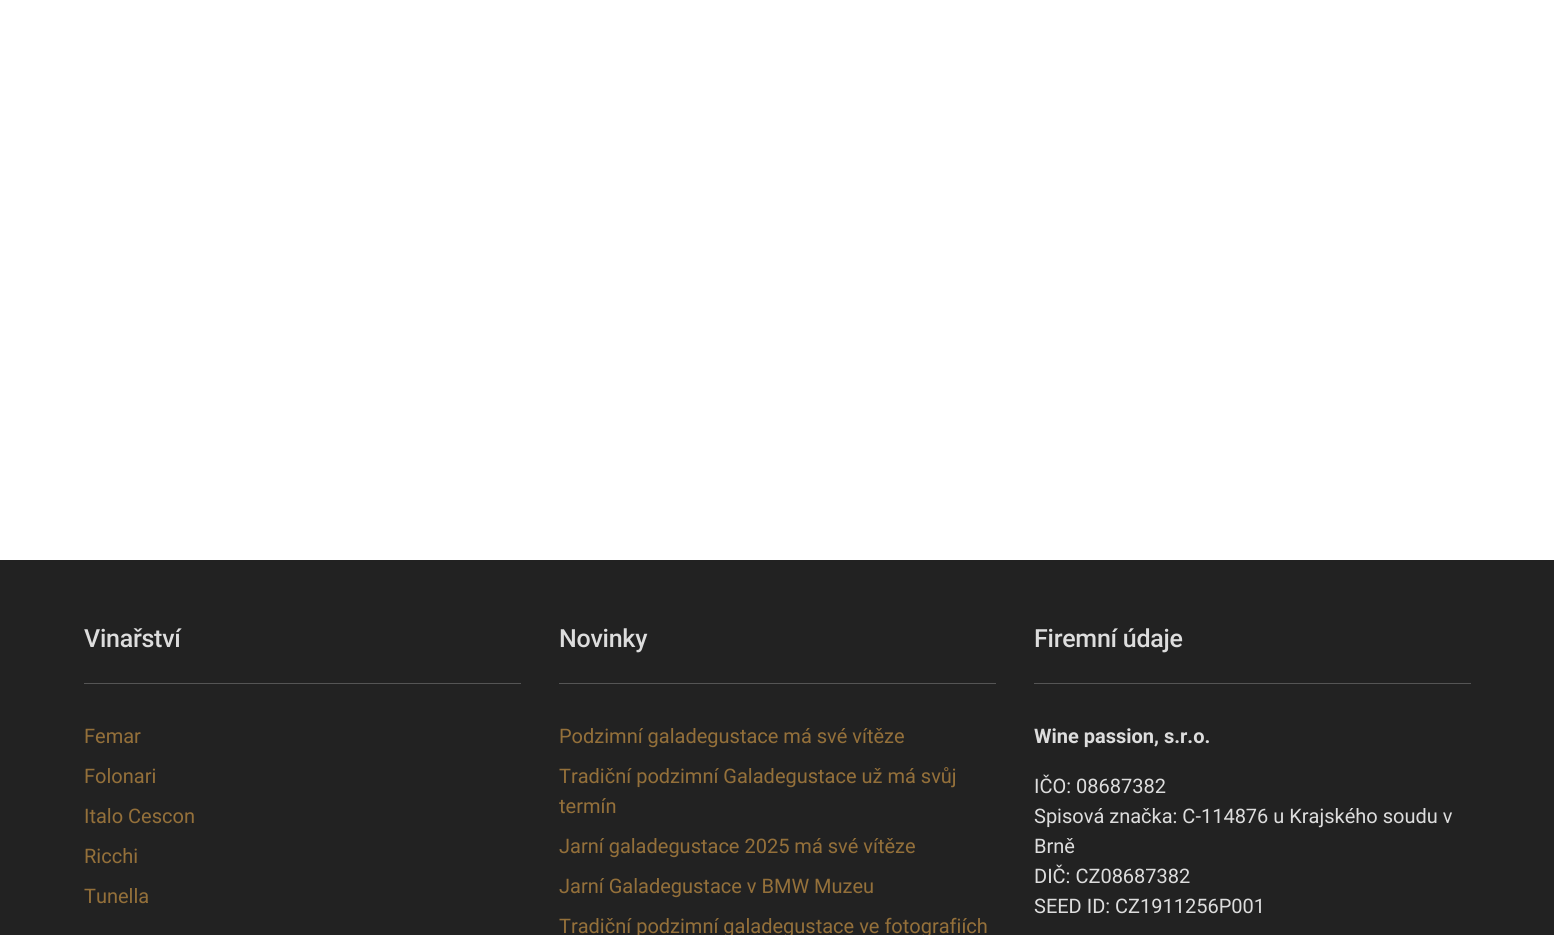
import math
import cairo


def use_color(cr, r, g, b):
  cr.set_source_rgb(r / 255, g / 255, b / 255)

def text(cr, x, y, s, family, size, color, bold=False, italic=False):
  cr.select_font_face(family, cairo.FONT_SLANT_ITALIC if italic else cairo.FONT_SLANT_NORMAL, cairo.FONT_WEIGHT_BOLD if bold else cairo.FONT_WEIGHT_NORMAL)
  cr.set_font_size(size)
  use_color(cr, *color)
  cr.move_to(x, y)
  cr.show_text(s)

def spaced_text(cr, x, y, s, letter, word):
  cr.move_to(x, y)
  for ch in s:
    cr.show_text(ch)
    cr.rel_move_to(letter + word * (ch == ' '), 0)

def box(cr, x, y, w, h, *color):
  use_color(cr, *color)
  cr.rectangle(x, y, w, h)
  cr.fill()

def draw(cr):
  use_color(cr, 255, 255, 255)
  cr.paint()
  box(cr, 0, 560, 1554, 375, 34, 34, 34)
  box(cr, 84, 683, 437, 1, 85, 85, 85)
  box(cr, 559, 683, 437, 1, 85, 85, 85)
  box(cr, 1034, 683, 437, 1, 85, 85, 85)
  cr.select_font_face("Roboto Medium")
  cr.set_font_size(25)
  use_color(cr, 221, 221, 221)
  spaced_text(cr, 84, 647, "Vinařství", -0.25, 0)
  text(cr, 84, 743, "Femar", "Roboto", 20, (148, 112, 58))
  text(cr, 84, 783, "Folonari", "Roboto", 20, (148, 112, 58))
  text(cr, 84, 823, "Italo Cescon", "Roboto", 20, (148, 112, 58))
  text(cr, 84, 863, "Ricchi", "Roboto", 20, (148, 112, 58))
  text(cr, 84, 903, "Tunella", "Roboto", 20, (148, 112, 58))
  cr.select_font_face("Roboto Medium")
  cr.set_font_size(25)
  use_color(cr, 221, 221, 221)
  spaced_text(cr, 559, 647, "Novinky", -0.25, 0)
  text(cr, 559, 743, "Podzimní galadegustace má své vítěze", "Roboto", 20, (148, 112, 58))
  text(cr, 559, 783, "Tradiční podzimní Galadegustace už má svůj", "Roboto", 20, (148, 112, 58))
  text(cr, 559, 813, "termín", "Roboto", 20, (148, 112, 58))
  text(cr, 559, 853, "Jarní galadegustace 2025 má své vítěze", "Roboto", 20, (148, 112, 58))
  text(cr, 559, 893, "Jarní Galadegustace v BMW Muzeu", "Roboto", 20, (148, 112, 58))
  text(cr, 559, 933, "Tradiční podzimní galadegustace ve fotografiích", "Roboto", 20, (148, 112, 58))
  cr.select_font_face("Roboto Medium")
  cr.set_font_size(25)
  use_color(cr, 221, 221, 221)
  spaced_text(cr, 1034, 647, "Firemní údaje", -0.25, 0)
  text(cr, 1034, 743, "Wine passion, s.r.o.", "Roboto", 20, (221, 221, 221), bold=True)
  text(cr, 1034, 793, "IČO: 08687382", "Roboto", 20, (221, 221, 221))
  text(cr, 1034, 823, "Spisová značka: C-114876 u Krajského soudu v", "Roboto", 20, (221, 221, 221))
  text(cr, 1034, 853, "Brně", "Roboto", 20, (221, 221, 221))
  text(cr, 1034, 883, "DIČ: CZ08687382", "Roboto", 20, (221, 221, 221))
  text(cr, 1034, 913, "SEED ID: CZ1911256P001", "Roboto", 20, (221, 221, 221))


surface = cairo.ImageSurface(cairo.FORMAT_RGB24, 1554, 935)
cr = cairo.Context(surface)
options = cairo.FontOptions()
options.set_hint_metrics(cairo.HINT_METRICS_OFF)
options.set_hint_style(cairo.HINT_STYLE_NONE)
cr.set_font_options(options)
cr.set_miter_limit(4)
draw(cr)
surface.write_to_png("out.png")
